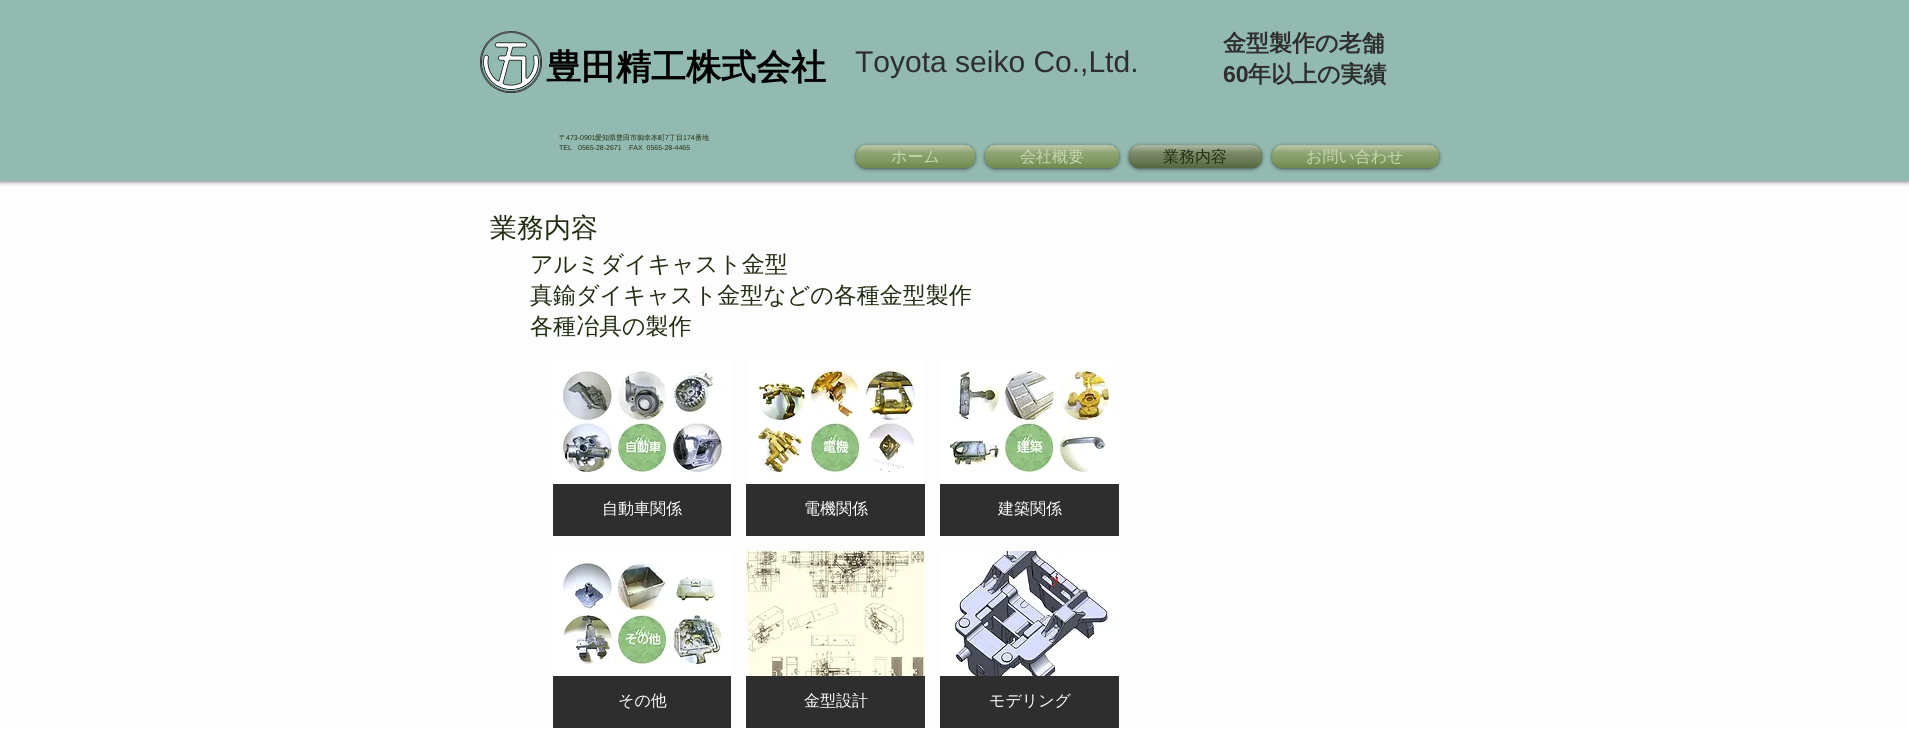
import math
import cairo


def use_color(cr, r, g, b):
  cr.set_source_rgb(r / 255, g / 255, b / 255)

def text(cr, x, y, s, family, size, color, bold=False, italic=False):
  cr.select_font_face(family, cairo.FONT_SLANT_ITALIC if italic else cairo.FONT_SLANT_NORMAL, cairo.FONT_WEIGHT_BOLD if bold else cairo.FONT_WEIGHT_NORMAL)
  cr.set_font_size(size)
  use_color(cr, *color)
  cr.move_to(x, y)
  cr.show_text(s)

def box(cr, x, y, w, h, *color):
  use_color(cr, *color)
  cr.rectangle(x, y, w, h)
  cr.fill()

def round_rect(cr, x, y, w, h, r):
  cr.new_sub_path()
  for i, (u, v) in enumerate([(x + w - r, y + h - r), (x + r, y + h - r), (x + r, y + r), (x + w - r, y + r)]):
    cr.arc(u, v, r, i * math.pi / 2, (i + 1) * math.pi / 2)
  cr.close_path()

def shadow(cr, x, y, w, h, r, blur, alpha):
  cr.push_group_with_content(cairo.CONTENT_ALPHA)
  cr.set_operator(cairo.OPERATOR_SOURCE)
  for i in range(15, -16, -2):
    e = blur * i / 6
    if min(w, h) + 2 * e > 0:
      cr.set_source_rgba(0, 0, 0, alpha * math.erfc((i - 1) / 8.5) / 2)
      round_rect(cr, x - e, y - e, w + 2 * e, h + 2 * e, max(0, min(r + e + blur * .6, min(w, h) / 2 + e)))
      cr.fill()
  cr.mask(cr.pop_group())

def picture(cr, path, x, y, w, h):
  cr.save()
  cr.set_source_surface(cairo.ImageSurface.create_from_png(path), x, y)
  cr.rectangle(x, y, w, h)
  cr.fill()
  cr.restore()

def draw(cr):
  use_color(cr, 254, 253, 253)
  cr.paint()
  use_color(cr, 0, 0, 0)
  shadow(cr, 0, 0, 1909, 181, 0, 2.5, 0.7)
  box(cr, 0, 0, 1909, 181, 147, 186, 176)
  picture(cr, "img_01.png", 480, 31, 62, 62)
  use_color(cr, 0, 0, 0)
  shadow(cr, 856, 146, 119, 23, 10, 2, 0.6)
  use_color(cr, 103, 140, 57)
  round_rect(cr, 856, 145, 119, 23, 10)
  cr.fill()
  picture(cr, "img_02.png", 856, 145, 119, 23)
  picture(cr, "img_03.png", 856, 145, 119, 23)
  use_color(cr, 0, 0, 0)
  shadow(cr, 985, 146, 134, 23, 10, 2, 0.6)
  use_color(cr, 103, 140, 57)
  round_rect(cr, 985, 145, 134, 23, 10)
  cr.fill()
  picture(cr, "img_04.png", 985, 145, 134, 23)
  picture(cr, "img_05.png", 985, 145, 134, 23)
  use_color(cr, 0, 0, 0)
  shadow(cr, 1129, 146, 133, 23, 10, 2, 0.6)
  use_color(cr, 68, 93, 38)
  round_rect(cr, 1129, 145, 133, 23, 10)
  cr.fill()
  picture(cr, "img_06.png", 1129, 145, 133, 23)
  picture(cr, "img_07.png", 1129, 145, 133, 23)
  use_color(cr, 0, 0, 0)
  shadow(cr, 1272, 146, 167, 23, 10, 2, 0.6)
  use_color(cr, 103, 140, 57)
  round_rect(cr, 1272, 145, 167, 23, 10)
  cr.fill()
  picture(cr, "img_08.png", 1272, 145, 167, 23)
  picture(cr, "img_09.png", 1272, 145, 167, 23)
  picture(cr, "img_10.png", 553, 359, 178, 125)
  box(cr, 553, 484, 178, 52, 47, 46, 46)
  picture(cr, "img_11.png", 746, 359, 179, 125)
  box(cr, 746, 484, 179, 52, 47, 46, 46)
  picture(cr, "img_12.png", 940, 359, 179, 125)
  box(cr, 940, 484, 179, 52, 47, 46, 46)
  picture(cr, "img_13.png", 553, 551, 178, 125)
  box(cr, 553, 676, 178, 52, 47, 46, 46)
  picture(cr, "img_14.png", 746, 551, 179, 125)
  box(cr, 746, 676, 179, 52, 47, 46, 46)
  picture(cr, "img_15.png", 940, 551, 179, 125)
  box(cr, 940, 676, 179, 52, 47, 46, 46)
  text(cr, 546, 79, "豊田精工株式会社", "WenQuanYi Zen Hei", 35, (0, 0, 0), bold=True)
  text(cr, 855, 72, "Toyota seiko Co.,Ltd.", "Liberation Sans", 30, (46, 46, 46))
  text(cr, 1223, 51, "金型製作の老舗", "WenQuanYi Zen Hei", 23, (46, 46, 46), bold=True)
  text(cr, 1223, 82, "60", "Liberation Sans", 23, (46, 46, 46), bold=True)
  text(cr, 1248, 82, "年以上の実績", "WenQuanYi Zen Hei", 23, (46, 46, 46), bold=True)
  text(cr, 559, 140, "〒", "WenQuanYi Zen Hei Medium", 7, (34, 46, 19))
  text(cr, 566, 140, "473-0901", "Liberation Sans", 7, (34, 46, 19))
  text(cr, 595, 140, "愛知県豊田市御幸本町", "WenQuanYi Zen Hei Medium", 7, (34, 46, 19))
  text(cr, 665, 140, "7", "Liberation Sans", 7, (34, 46, 19))
  text(cr, 669, 140, "丁目", "WenQuanYi Zen Hei Medium", 7, (34, 46, 19))
  text(cr, 683, 140, "174", "Liberation Sans", 7, (34, 46, 19))
  text(cr, 695, 140, "番地", "WenQuanYi Zen Hei Medium", 7, (34, 46, 19))
  text(cr, 559, 150, "TEL", "Liberation Sans", 7, (34, 46, 19))
  text(cr, 578, 150, "0565-28-2671", "Liberation Sans", 7, (34, 46, 19))
  text(cr, 629, 150, "FAX  0565-28-4465", "Liberation Sans", 7, (34, 46, 19))
  text(cr, 891, 162, "ホーム", "WenQuanYi Zen Hei Medium", 16, (197, 216, 174))
  text(cr, 1020, 162, "会社概要", "WenQuanYi Zen Hei Medium", 16, (197, 216, 174))
  text(cr, 1163, 162, "業務内容", "WenQuanYi Zen Hei Medium", 16, (34, 46, 19))
  text(cr, 1306, 162, "お問い合わせ", "WenQuanYi Zen Hei Medium", 16, (197, 216, 174))
  text(cr, 490, 237, "業務内容", "WenQuanYi Zen Hei Medium", 27, (34, 46, 19))
  text(cr, 530, 272, "アルミダイキャスト金型", "WenQuanYi Zen Hei Medium", 23, (34, 46, 19))
  text(cr, 530, 303, "真鍮ダイキャスト金型などの各種金型製作", "WenQuanYi Zen Hei Medium", 23, (34, 46, 19))
  text(cr, 530, 334, "各種冶具の製作", "WenQuanYi Zen Hei Medium", 23, (34, 46, 19))
  text(cr, 602, 514, "自動車関係", "WenQuanYi Zen Hei Medium", 16, (255, 255, 255))
  text(cr, 804, 514, "電機関係", "WenQuanYi Zen Hei Medium", 16, (255, 255, 255))
  text(cr, 998, 514, "建築関係", "WenQuanYi Zen Hei Medium", 16, (255, 255, 255))
  text(cr, 618, 706, "その他", "WenQuanYi Zen Hei Medium", 16, (255, 255, 255))
  text(cr, 804, 706, "金型設計", "WenQuanYi Zen Hei Medium", 16, (255, 255, 255))
  text(cr, 989, 706, "モデリング", "WenQuanYi Zen Hei Medium", 16, (255, 255, 255))


surface = cairo.ImageSurface(cairo.FORMAT_RGB24, 1909, 729)
cr = cairo.Context(surface)
options = cairo.FontOptions()
options.set_hint_metrics(cairo.HINT_METRICS_OFF)
options.set_hint_style(cairo.HINT_STYLE_NONE)
cr.set_font_options(options)
cr.set_miter_limit(4)
draw(cr)
surface.write_to_png("out.png")
